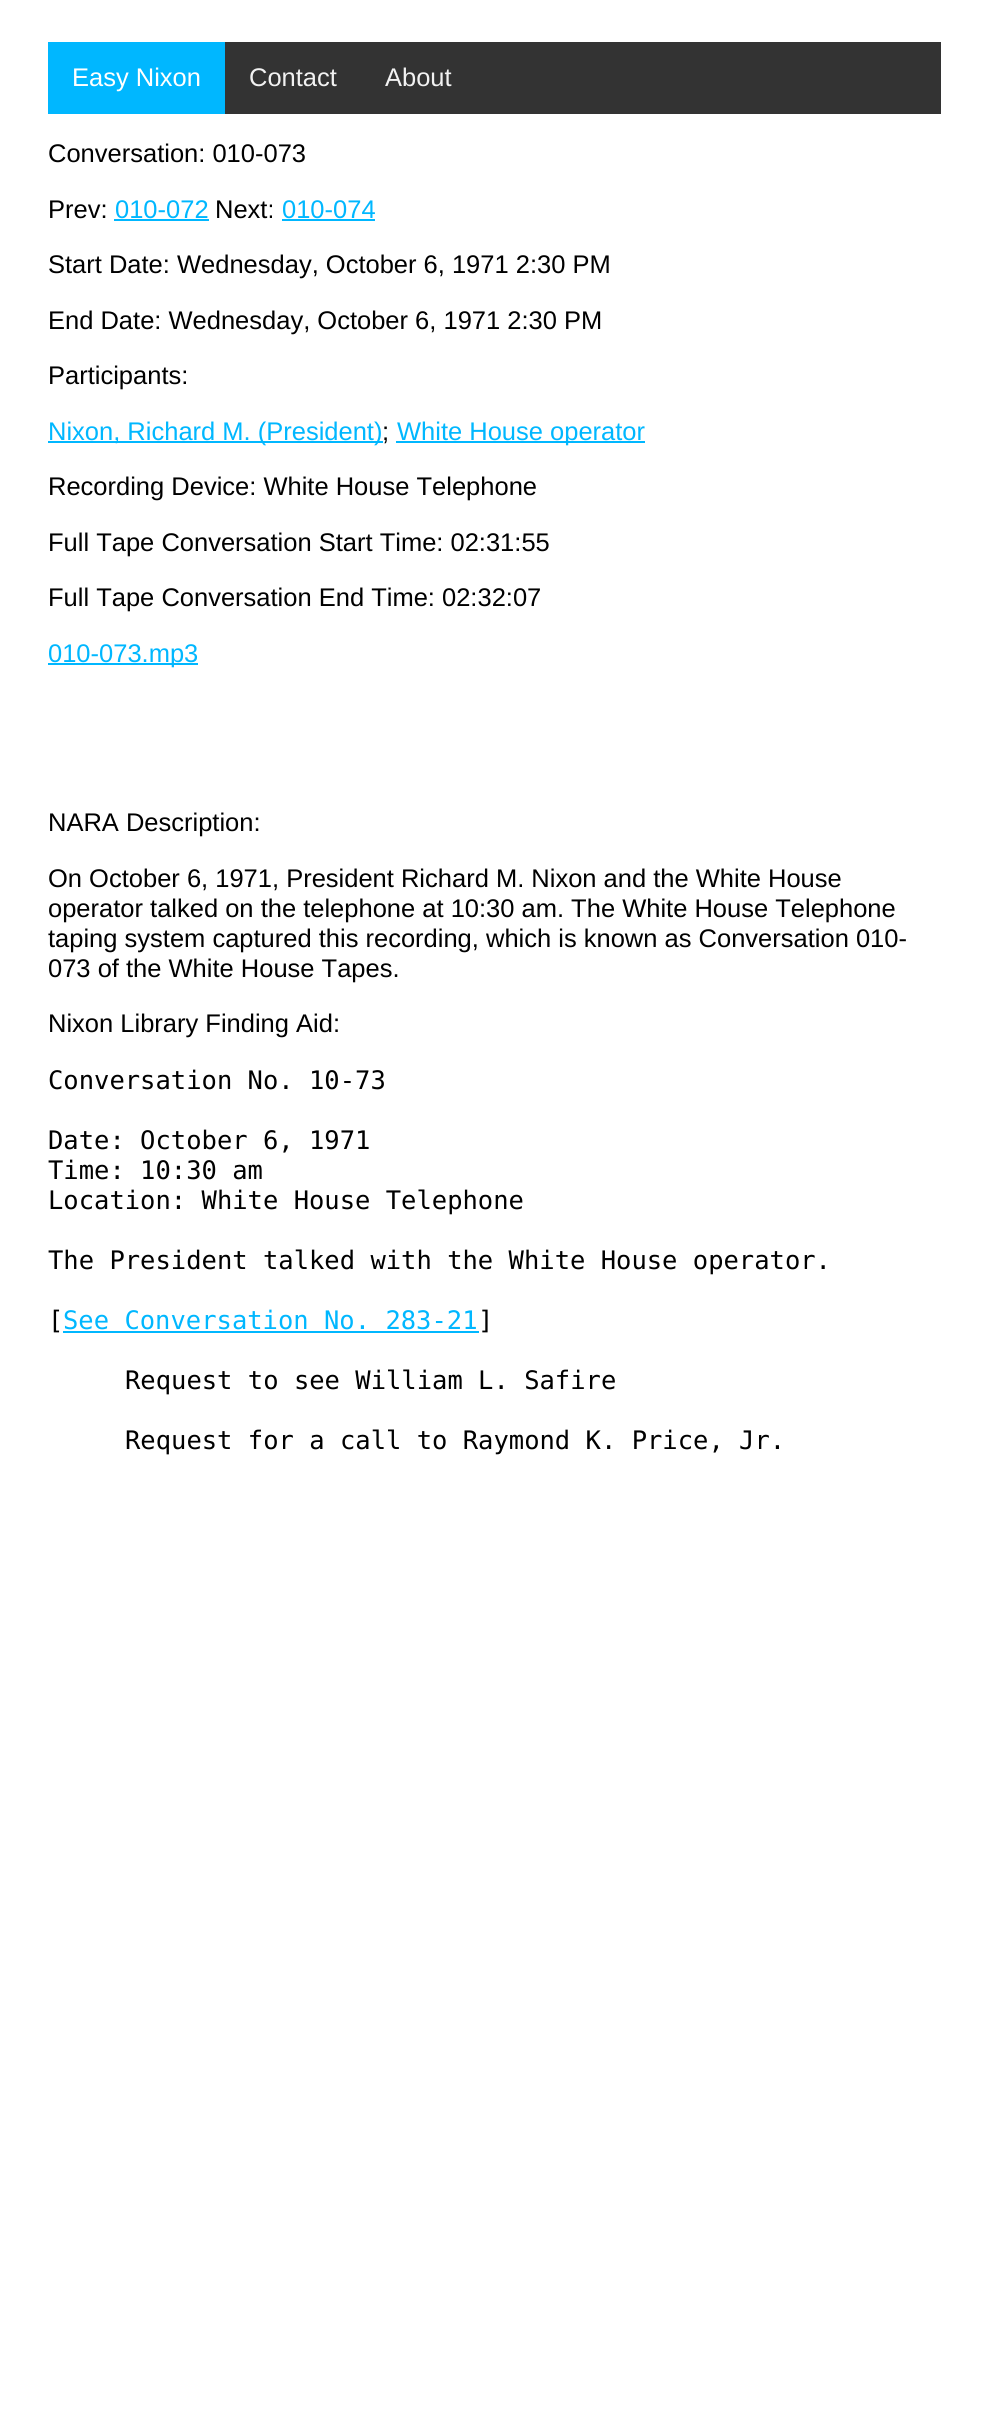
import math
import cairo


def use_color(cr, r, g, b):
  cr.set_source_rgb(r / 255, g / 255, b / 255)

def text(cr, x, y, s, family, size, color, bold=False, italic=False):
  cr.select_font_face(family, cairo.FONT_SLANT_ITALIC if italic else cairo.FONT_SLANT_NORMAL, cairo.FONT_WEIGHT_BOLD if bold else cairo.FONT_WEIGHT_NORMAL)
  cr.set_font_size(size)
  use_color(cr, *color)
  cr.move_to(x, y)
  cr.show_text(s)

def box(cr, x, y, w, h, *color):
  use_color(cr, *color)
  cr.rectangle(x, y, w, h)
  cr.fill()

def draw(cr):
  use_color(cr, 255, 255, 255)
  cr.paint()
  box(cr, 225, 42, 716, 72, 51, 51, 51)
  box(cr, 48, 42, 177, 72, 0, 183, 255)
  box(cr, 114, 219, 95, 2, 0, 183, 255)
  box(cr, 282, 219, 93, 2, 0, 183, 255)
  box(cr, 48, 441, 335, 2, 0, 183, 255)
  box(cr, 396, 441, 249, 2, 0, 183, 255)
  box(cr, 48, 663, 150, 2, 0, 183, 255)
  box(cr, 63, 1331, 416, 2, 0, 183, 255)
  text(cr, 72, 86, "Easy Nixon", "Liberation Sans", 25.5, (255, 255, 255))
  text(cr, 249, 86, "Contact", "Liberation Sans", 25.5, (242, 242, 242))
  text(cr, 385, 86, "About", "Liberation Sans", 25.5, (242, 242, 242))
  text(cr, 48, 162, "Conversation: 010-073", "Liberation Sans", 25.5, (0, 0, 0))
  text(cr, 48, 218, "Prev:", "Liberation Sans", 25.5, (0, 0, 0))
  text(cr, 115, 218, "010-072", "Liberation Sans", 25.5, (0, 183, 255))
  text(cr, 215, 218, "Next:", "Liberation Sans", 25.5, (0, 0, 0))
  text(cr, 282, 218, "010-074", "Liberation Sans", 25.5, (0, 183, 255))
  text(cr, 48, 273, "Start Date: Wednesday, October 6, 1971 2:30 PM", "Liberation Sans", 25.5, (0, 0, 0))
  text(cr, 48, 329, "End Date: Wednesday, October 6, 1971 2:30 PM", "Liberation Sans", 25.5, (0, 0, 0))
  text(cr, 48, 384, "Participants:", "Liberation Sans", 25.5, (0, 0, 0))
  text(cr, 48, 440, "Nixon, Richard M. (President)", "Liberation Sans", 25.5, (0, 183, 255))
  text(cr, 382, 440, ";", "Liberation Sans", 25.5, (0, 0, 0))
  text(cr, 397, 440, "White House operator", "Liberation Sans", 25.5, (0, 183, 255))
  text(cr, 48, 495, "Recording Device: White House Telephone", "Liberation Sans", 25.5, (0, 0, 0))
  text(cr, 48, 551, "Full Tape Conversation Start Time: 02:31:55", "Liberation Sans", 25.5, (0, 0, 0))
  text(cr, 48, 606, "Full Tape Conversation End Time: 02:32:07", "Liberation Sans", 25.5, (0, 0, 0))
  text(cr, 48, 662, "010-073.mp3", "Liberation Sans", 25.5, (0, 183, 255))
  text(cr, 48, 831, "NARA Description:", "Liberation Sans", 25.5, (0, 0, 0))
  text(cr, 48, 887, "On October 6, 1971, President Richard M. Nixon and the White House", "Liberation Sans", 25.5, (0, 0, 0))
  text(cr, 48, 917, "operator talked on the telephone at 10:30 am. The White House Telephone", "Liberation Sans", 25.5, (0, 0, 0))
  text(cr, 48, 947, "taping system captured this recording, which is known as Conversation 010-", "Liberation Sans", 25.5, (0, 0, 0))
  text(cr, 48, 977, "073 of the White House Tapes.", "Liberation Sans", 25.5, (0, 0, 0))
  text(cr, 48, 1032, "Nixon Library Finding Aid:", "Liberation Sans", 25.5, (0, 0, 0))
  text(cr, 48, 1089, "Conversation No. 10-73", "DejaVu Sans Mono", 25.5, (0, 0, 0))
  text(cr, 48, 1149, "Date: October 6, 1971", "DejaVu Sans Mono", 25.5, (0, 0, 0))
  text(cr, 48, 1179, "Time: 10:30 am", "DejaVu Sans Mono", 25.5, (0, 0, 0))
  text(cr, 48, 1209, "Location: White House Telephone", "DejaVu Sans Mono", 25.5, (0, 0, 0))
  text(cr, 48, 1269, "The President talked with the White House operator.", "DejaVu Sans Mono", 25.5, (0, 0, 0))
  text(cr, 48, 1329, "[", "DejaVu Sans Mono", 25.5, (0, 0, 0))
  text(cr, 63, 1329, "See Conversation No. 283-21", "DejaVu Sans Mono", 25.5, (0, 183, 255))
  text(cr, 478, 1329, "]", "DejaVu Sans Mono", 25.5, (0, 0, 0))
  text(cr, 125, 1389, "Request to see William L. Safire", "DejaVu Sans Mono", 25.5, (0, 0, 0))
  text(cr, 125, 1449, "Request for a call to Raymond K. Price, Jr.", "DejaVu Sans Mono", 25.5, (0, 0, 0))


surface = cairo.ImageSurface(cairo.FORMAT_RGB24, 988, 2418)
cr = cairo.Context(surface)
options = cairo.FontOptions()
options.set_hint_metrics(cairo.HINT_METRICS_OFF)
options.set_hint_style(cairo.HINT_STYLE_NONE)
cr.set_font_options(options)
cr.set_miter_limit(4)
draw(cr)
surface.write_to_png("out.png")
